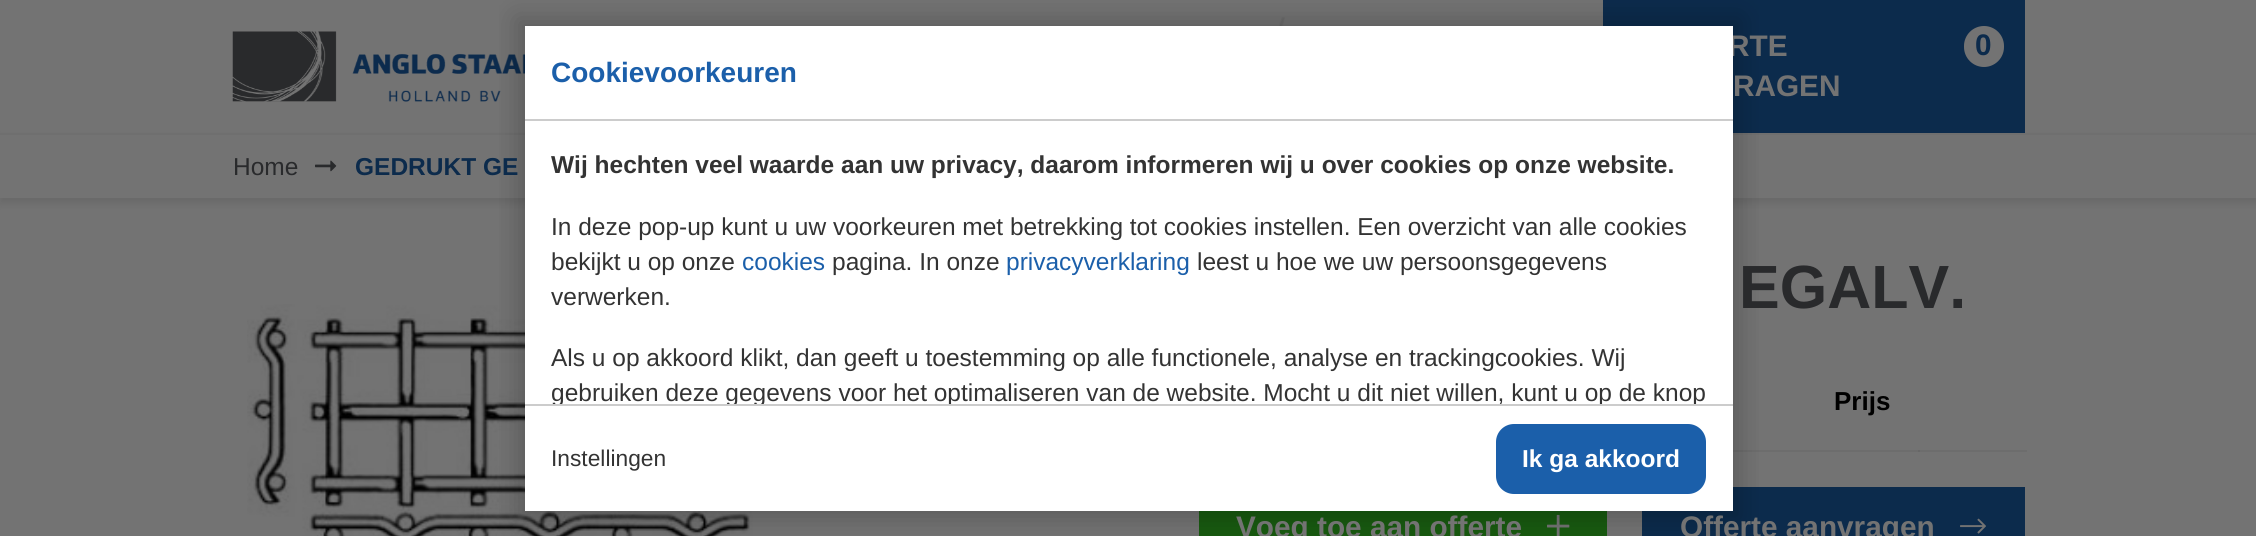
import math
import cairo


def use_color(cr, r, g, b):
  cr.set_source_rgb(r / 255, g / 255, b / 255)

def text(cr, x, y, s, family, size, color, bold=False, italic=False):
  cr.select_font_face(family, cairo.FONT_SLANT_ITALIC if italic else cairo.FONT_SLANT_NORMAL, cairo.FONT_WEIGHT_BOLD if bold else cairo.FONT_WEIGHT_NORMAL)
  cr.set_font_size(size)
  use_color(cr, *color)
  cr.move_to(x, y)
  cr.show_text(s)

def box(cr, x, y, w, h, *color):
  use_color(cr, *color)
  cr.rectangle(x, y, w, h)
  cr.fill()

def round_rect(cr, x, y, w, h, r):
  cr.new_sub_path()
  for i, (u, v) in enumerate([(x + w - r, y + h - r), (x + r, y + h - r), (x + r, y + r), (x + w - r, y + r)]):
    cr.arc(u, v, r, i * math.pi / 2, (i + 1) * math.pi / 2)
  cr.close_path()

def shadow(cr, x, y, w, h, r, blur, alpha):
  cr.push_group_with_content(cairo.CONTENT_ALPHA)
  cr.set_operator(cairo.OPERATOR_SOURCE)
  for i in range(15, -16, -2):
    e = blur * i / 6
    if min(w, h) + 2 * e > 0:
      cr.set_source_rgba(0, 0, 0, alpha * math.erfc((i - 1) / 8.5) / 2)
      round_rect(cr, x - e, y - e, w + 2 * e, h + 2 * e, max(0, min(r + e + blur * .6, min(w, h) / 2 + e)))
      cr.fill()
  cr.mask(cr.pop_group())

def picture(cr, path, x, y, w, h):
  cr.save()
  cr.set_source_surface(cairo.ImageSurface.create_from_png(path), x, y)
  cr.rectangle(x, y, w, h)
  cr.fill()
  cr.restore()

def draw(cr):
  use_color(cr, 115, 115, 115)
  cr.paint()
  box(cr, 1733, 450, 294, 2, 109, 109, 109)
  picture(cr, "img_01.png", 1278, 17, 8, 9)
  picture(cr, "img_02.png", 232, 31, 293, 71)
  use_color(cr, 0, 0, 0)
  shadow(cr, 0, 138, 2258, 65, 0, 4.5, 0.1)
  box(cr, 1603, 0, 422, 133, 12, 43, 76)
  use_color(cr, 115, 115, 115)
  round_rect(cr, 1964, 26, 40, 41, 20)
  cr.fill()
  box(cr, 0, 135, 2256, 63, 115, 115, 115)
  box(cr, 0, 133, 2256, 2, 111, 111, 111)
  picture(cr, "img_03.png", 315, 160, 22, 12)
  picture(cr, "img_04.png", 247, 304, 506, 232)
  box(cr, 1918, 450, 2, 2, 103, 103, 103)
  box(cr, 1199, 511, 408, 25, 24, 90, 16)
  picture(cr, "img_05.png", 1547, 514, 23, 22)
  box(cr, 1642, 487, 383, 49, 12, 43, 76)
  picture(cr, "img_06.png", 1960, 518, 26, 16)
  cr.save()
  cr.rectangle(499, 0, 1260, 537)
  cr.clip()
  use_color(cr, 0, 0, 0)
  shadow(cr, 516, 18, 1225, 502, 0, 13, 0.2)
  cr.restore()
  text(cr, 1728, 56, "RTE", "Liberation Sans", 29.75, (115, 115, 115), bold=True)
  text(cr, 1733, 96, "RAGEN", "Liberation Sans", 29.75, (115, 115, 115), bold=True)
  text(cr, 1975, 55, "0", "Liberation Sans", 29.75, (12, 43, 76), bold=True)
  text(cr, 233, 175, "Home", "Liberation Sans", 24.5, (41, 42, 44))
  text(cr, 355, 175, "GEDRUKT GE", "Liberation Sans", 24.5, (12, 43, 76), bold=True)
  text(cr, 1739, 308, "EGALV.", "Liberation Sans", 61, (41, 42, 44), bold=True)
  text(cr, 1834, 410, "Prijs", "Liberation Sans", 26, (0, 0, 0), bold=True)
  text(cr, 1236, 537, "Voeg toe aan offerte", "Liberation Sans", 29.75, (115, 115, 115), bold=True)
  text(cr, 1680, 537, "Offerte aanvragen", "Liberation Sans", 29.75, (115, 115, 115), bold=True)
  box(cr, 525, 26, 1208, 485, 255, 255, 255)
  box(cr, 525, 119, 1208, 2, 204, 204, 204)
  text(cr, 551, 82, "Cookievoorkeuren", "Liberation Sans", 28, (27, 95, 170), bold=True)
  text(cr, 551, 173, "Wij hechten veel waarde aan uw privacy, daarom informeren wij u over cookies op onze website.", "Liberation Sans", 24.5, (51, 51, 51), bold=True)
  text(cr, 551, 235, "In deze pop-up kunt u uw voorkeuren met betrekking tot cookies instellen. Een overzicht van alle cookies", "Liberation Sans", 24.5, (51, 51, 51))
  text(cr, 551, 270, "bekijkt u op onze", "Liberation Sans", 24.5, (51, 51, 51))
  text(cr, 742, 270, "cookies", "Liberation Sans", 24.5, (27, 95, 170))
  text(cr, 832, 270, "pagina. In onze", "Liberation Sans", 24.5, (51, 51, 51))
  text(cr, 1006, 270, "privacyverklaring", "Liberation Sans", 24.5, (27, 95, 170))
  text(cr, 1197, 270, "leest u hoe we uw persoonsgegevens", "Liberation Sans", 24.5, (51, 51, 51))
  text(cr, 551, 305, "verwerken.", "Liberation Sans", 24.5, (51, 51, 51))
  text(cr, 551, 366, "Als u op akkoord klikt, dan geeft u toestemming op alle functionele, analyse en trackingcookies. Wij", "Liberation Sans", 24.5, (51, 51, 51))
  cr.save()
  cr.rectangle(525, 121, 1208, 283)
  cr.clip()
  text(cr, 551, 401, "gebruiken deze gegevens voor het optimaliseren van de website. Mocht u dit niet willen, kunt u op de knop", "Liberation Sans", 24.5, (51, 51, 51))
  cr.restore()
  box(cr, 525, 404, 1208, 2, 204, 204, 204)
  text(cr, 551, 466, "Instellingen", "Liberation Sans", 22.75, (51, 51, 51))
  use_color(cr, 27, 95, 170)
  round_rect(cr, 1497, 425, 208, 68, 17)
  cr.fill_preserve()
  cr.stroke()
  text(cr, 1522, 467, "Ik ga akkoord", "Liberation Sans", 24.5, (255, 255, 255), bold=True)


surface = cairo.ImageSurface(cairo.FORMAT_RGB24, 2256, 536)
cr = cairo.Context(surface)
options = cairo.FontOptions()
options.set_hint_metrics(cairo.HINT_METRICS_OFF)
options.set_hint_style(cairo.HINT_STYLE_NONE)
cr.set_font_options(options)
cr.set_miter_limit(4)
draw(cr)
surface.write_to_png("out.png")
